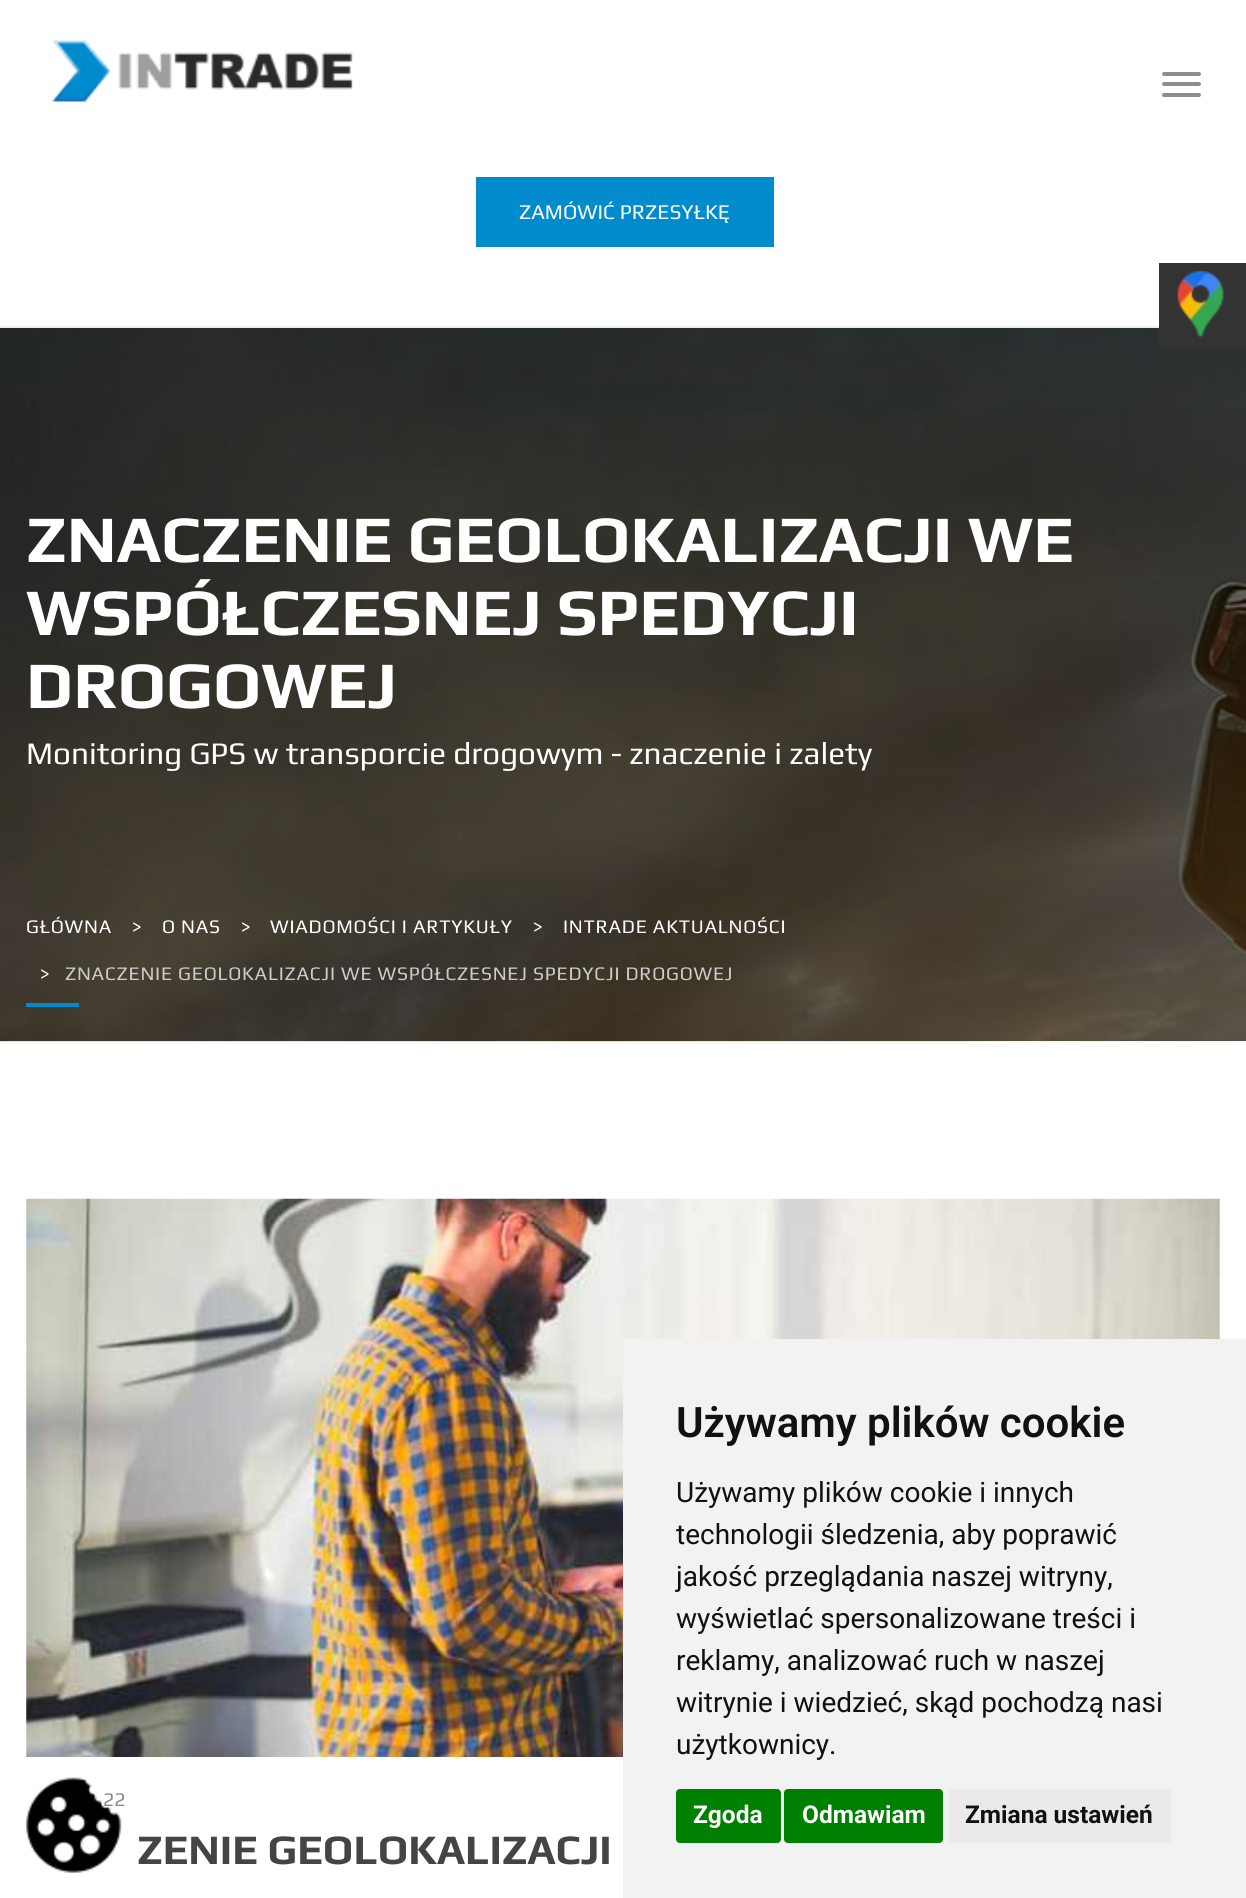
import math
import cairo


def use_color(cr, r, g, b):
  cr.set_source_rgb(r / 255, g / 255, b / 255)

def text(cr, x, y, s, family, size, color, bold=False, italic=False):
  cr.select_font_face(family, cairo.FONT_SLANT_ITALIC if italic else cairo.FONT_SLANT_NORMAL, cairo.FONT_WEIGHT_BOLD if bold else cairo.FONT_WEIGHT_NORMAL)
  cr.set_font_size(size)
  use_color(cr, *color)
  cr.move_to(x, y)
  cr.show_text(s)

def spaced_text(cr, x, y, s, letter, word):
  cr.move_to(x, y)
  for ch in s:
    cr.show_text(ch)
    cr.rel_move_to(letter + word * (ch == ' '), 0)

def box(cr, x, y, w, h, *color):
  use_color(cr, *color)
  cr.rectangle(x, y, w, h)
  cr.fill()

def round_rect(cr, x, y, w, h, r):
  cr.new_sub_path()
  for i, (u, v) in enumerate([(x + w - r, y + h - r), (x + r, y + h - r), (x + r, y + r), (x + w - r, y + r)]):
    cr.arc(u, v, r, i * math.pi / 2, (i + 1) * math.pi / 2)
  cr.close_path()

def picture(cr, path, x, y, w, h):
  cr.save()
  cr.set_source_surface(cairo.ImageSurface.create_from_png(path), x, y)
  cr.rectangle(x, y, w, h)
  cr.fill()
  cr.restore()

def draw(cr):
  use_color(cr, 255, 255, 255)
  cr.paint()
  box(cr, 0, 326, 1159, 2, 238, 238, 238)
  picture(cr, "img_01.png", 52, 39, 301, 63)
  use_color(cr, 141, 141, 141)
  cr.new_path()
  cr.move_to(1164, 72)
  cr.line_to(1181, 72)
  cr.line_to(1181, 76)
  cr.line_to(1164, 76)
  cr.curve_to(1163, 76, 1162, 75, 1162, 74)
  cr.curve_to(1162, 73, 1163, 72, 1164, 72)
  cr.close_path()
  cr.fill()
  cr.new_path()
  cr.move_to(1181, 72)
  cr.line_to(1199, 72)
  cr.curve_to(1200, 72, 1201, 73, 1201, 74)
  cr.curve_to(1201, 75, 1200, 76, 1199, 76)
  cr.line_to(1181, 76)
  cr.close_path()
  cr.fill()
  cr.new_path()
  cr.move_to(1164, 82)
  cr.line_to(1181, 82)
  cr.line_to(1181, 86)
  cr.line_to(1164, 86)
  cr.curve_to(1163, 86, 1162, 85, 1162, 84)
  cr.curve_to(1162, 83, 1163, 82, 1164, 82)
  cr.close_path()
  cr.fill()
  cr.new_path()
  cr.move_to(1181, 82)
  cr.line_to(1199, 82)
  cr.curve_to(1200, 82, 1201, 83, 1201, 84)
  cr.curve_to(1201, 85, 1200, 86, 1199, 86)
  cr.line_to(1181, 86)
  cr.close_path()
  cr.fill()
  cr.new_path()
  cr.move_to(1164, 93)
  cr.line_to(1181, 93)
  cr.line_to(1181, 97)
  cr.line_to(1164, 97)
  cr.curve_to(1163, 97, 1162, 96, 1162, 95)
  cr.curve_to(1162, 94, 1163, 93, 1164, 93)
  cr.close_path()
  cr.fill()
  cr.new_path()
  cr.move_to(1181, 93)
  cr.line_to(1199, 93)
  cr.curve_to(1200, 93, 1201, 94, 1201, 95)
  cr.curve_to(1201, 96, 1200, 97, 1199, 97)
  cr.line_to(1181, 97)
  cr.close_path()
  cr.fill()
  box(cr, 476, 177, 298, 70, 0, 140, 204)
  picture(cr, "img_03.png", 0, 328, 1246, 714)
  box(cr, 1159, 263, 87, 84, 51, 51, 51)
  picture(cr, "img_02.png", 1177, 271, 47, 67)
  box(cr, 26, 1003, 53, 4, 0, 140, 204)
  picture(cr, "img_05.png", 26, 1198, 1194, 559)
  box(cr, 623, 1339, 623, 559, 242, 242, 242)
  use_color(cr, 0, 128, 0)
  round_rect(cr, 676, 1789, 105, 54, 4)
  cr.fill()
  round_rect(cr, 784, 1789, 159, 54, 4)
  cr.fill()
  use_color(cr, 234, 234, 234)
  round_rect(cr, 949, 1789, 222, 54, 4)
  cr.fill()
  text(cr, 519, 219, "ZAMÓWIĆ PRZESYŁKĘ", "Play", 21, (255, 255, 255))
  text(cr, 26, 562, "ZNACZENIE GEOLOKALIZACJI WE", "Play", 66.5, (255, 255, 255), bold=True)
  text(cr, 26, 635, "WSPÓŁCZESNEJ SPEDYCJI", "Play", 66.5, (255, 255, 255), bold=True)
  text(cr, 26, 708, "DROGOWEJ", "Play", 66.5, (255, 255, 255), bold=True)
  text(cr, 26, 764, "Monitoring GPS w transporcie drogowym - znaczenie i zalety", "Play", 31.5, (255, 255, 255))
  cr.set_font_size(19.25)
  spaced_text(cr, 26, 933, "GŁÓWNA", 0.77, 0)
  spaced_text(cr, 132, 933, ">", 0.77, 0)
  spaced_text(cr, 162, 933, "O NAS", 0.77, 0)
  spaced_text(cr, 241, 933, ">", 0.77, 0)
  spaced_text(cr, 270, 933, "WIADOMOŚCI I ARTYKUŁY", 0.77, 0)
  spaced_text(cr, 533, 933, ">", 0.77, 0)
  spaced_text(cr, 563, 933, "INTRADE AKTUALNOŚCI", 0.77, 0)
  spaced_text(cr, 40, 980, ">", 0.77, 0)
  use_color(cr, 204, 204, 204)
  spaced_text(cr, 65, 980, "ZNACZENIE GEOLOKALIZACJI WE WSPÓŁCZESNEJ SPEDYCJI DROGOWEJ", 0.77, 0)
  text(cr, 103, 1806, "22", "Play", 19.25, (136, 136, 136))
  picture(cr, "img_04.png", 25, 1777, 97, 96)
  text(cr, 137, 1864, "ZENIE GEOLOKALIZACJI", "Play", 42, (68, 68, 68), bold=True)
  text(cr, 676, 1437, "Używamy plików cookie", "Roboto SemiBold", 42, (17, 17, 17))
  text(cr, 676, 1502, "Używamy plików cookie i innych", "Roboto", 28, (17, 17, 17))
  text(cr, 676, 1544, "technologii śledzenia, aby poprawić", "Roboto", 28, (17, 17, 17))
  text(cr, 676, 1586, "jakość przeglądania naszej witryny,", "Roboto", 28, (17, 17, 17))
  text(cr, 676, 1628, "wyświetlać spersonalizowane treści i", "Roboto", 28, (17, 17, 17))
  text(cr, 676, 1670, "reklamy, analizować ruch w naszej", "Roboto", 28, (17, 17, 17))
  text(cr, 676, 1712, "witrynie i wiedzieć, skąd pochodzą nasi", "Roboto", 28, (17, 17, 17))
  text(cr, 676, 1754, "użytkownicy.", "Roboto", 28, (17, 17, 17))
  text(cr, 693, 1823, "Zgoda", "Roboto", 24.5, (255, 255, 255), bold=True)
  text(cr, 802, 1823, "Odmawiam", "Roboto", 24.5, (255, 255, 255), bold=True)
  text(cr, 965, 1823, "Zmiana ustawień", "Roboto", 24.5, (17, 17, 17), bold=True)


surface = cairo.ImageSurface(cairo.FORMAT_RGB24, 1246, 1898)
cr = cairo.Context(surface)
options = cairo.FontOptions()
options.set_hint_metrics(cairo.HINT_METRICS_OFF)
options.set_hint_style(cairo.HINT_STYLE_NONE)
cr.set_font_options(options)
cr.set_miter_limit(4)
draw(cr)
surface.write_to_png("out.png")
